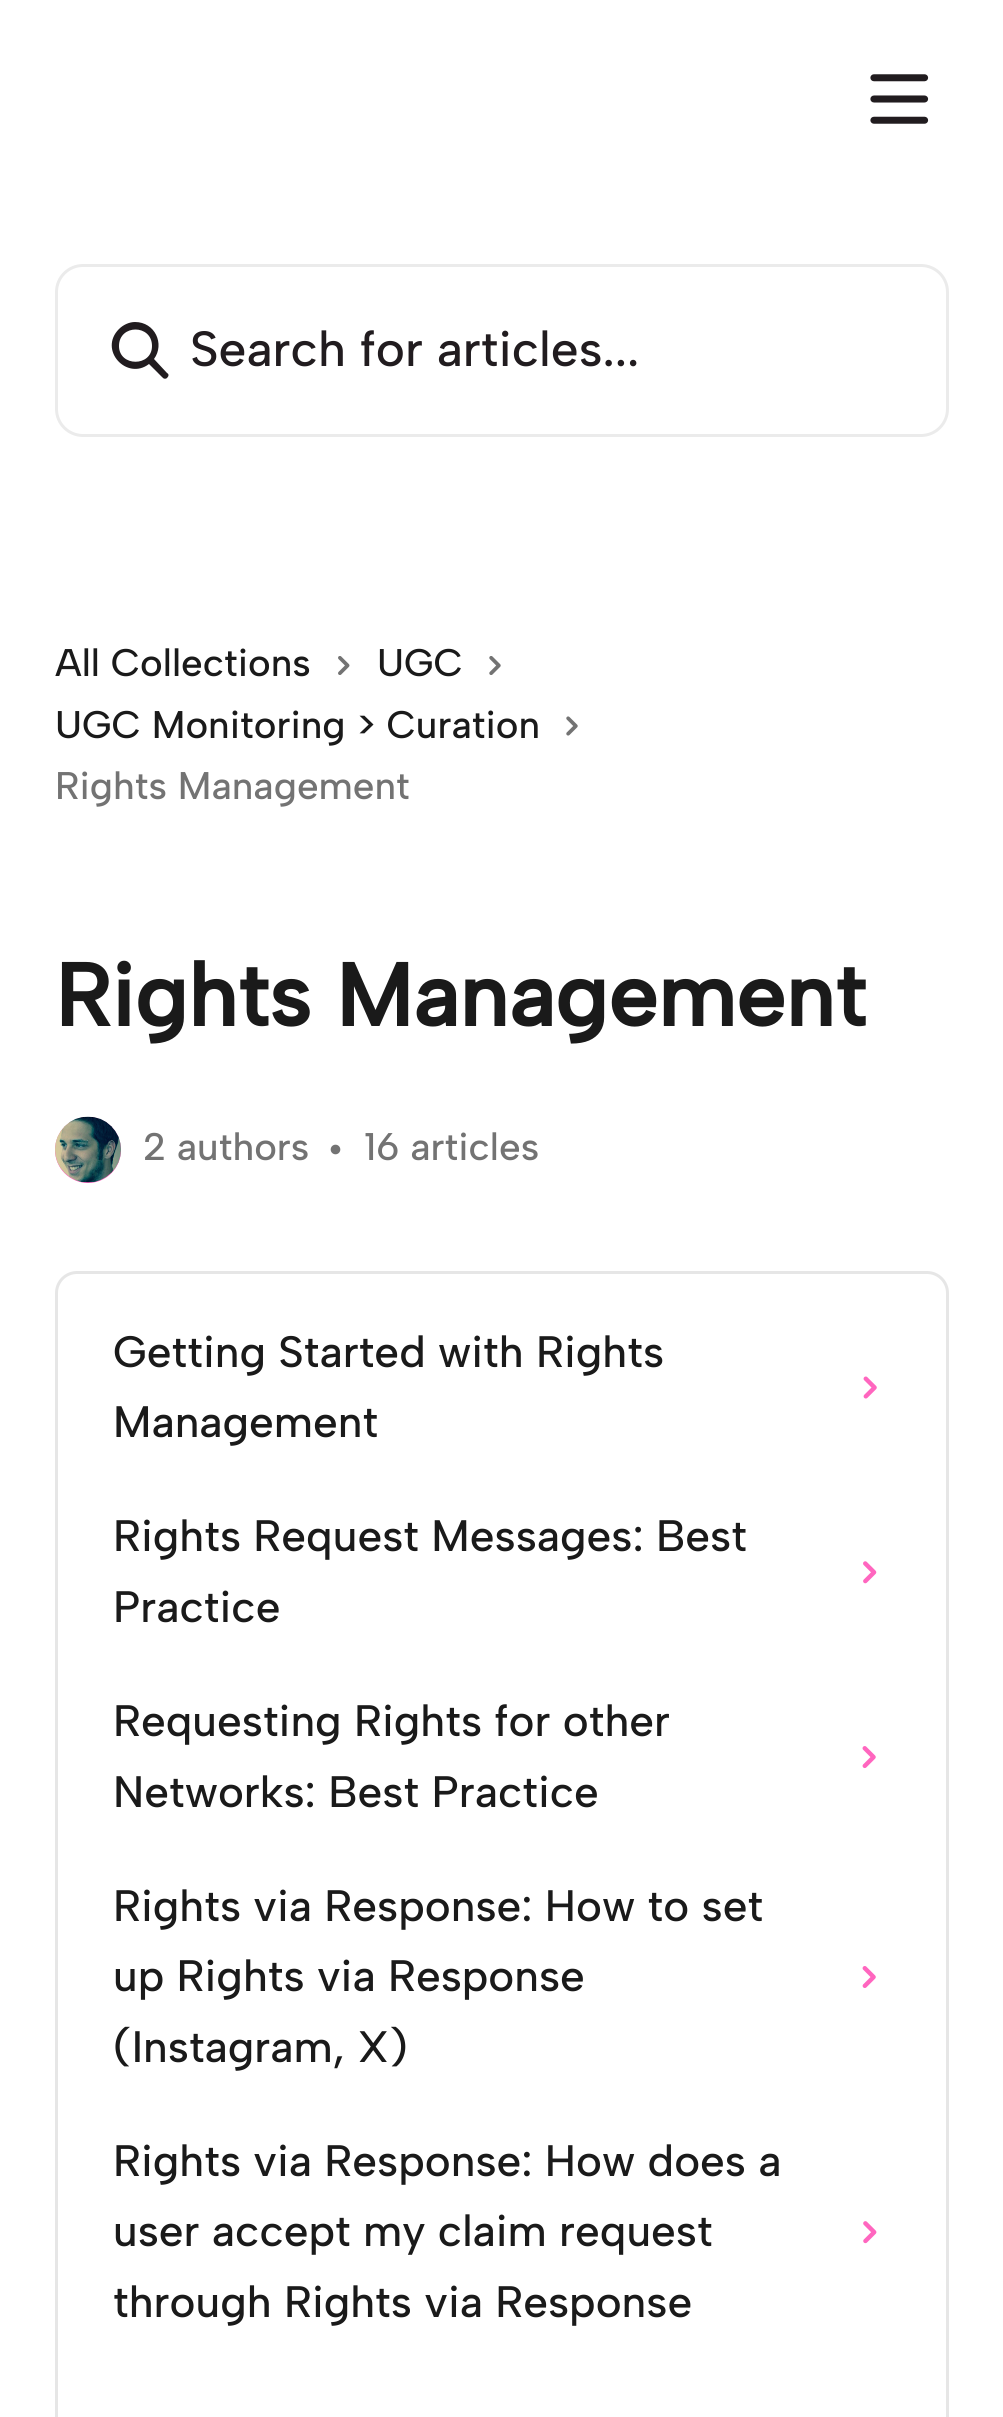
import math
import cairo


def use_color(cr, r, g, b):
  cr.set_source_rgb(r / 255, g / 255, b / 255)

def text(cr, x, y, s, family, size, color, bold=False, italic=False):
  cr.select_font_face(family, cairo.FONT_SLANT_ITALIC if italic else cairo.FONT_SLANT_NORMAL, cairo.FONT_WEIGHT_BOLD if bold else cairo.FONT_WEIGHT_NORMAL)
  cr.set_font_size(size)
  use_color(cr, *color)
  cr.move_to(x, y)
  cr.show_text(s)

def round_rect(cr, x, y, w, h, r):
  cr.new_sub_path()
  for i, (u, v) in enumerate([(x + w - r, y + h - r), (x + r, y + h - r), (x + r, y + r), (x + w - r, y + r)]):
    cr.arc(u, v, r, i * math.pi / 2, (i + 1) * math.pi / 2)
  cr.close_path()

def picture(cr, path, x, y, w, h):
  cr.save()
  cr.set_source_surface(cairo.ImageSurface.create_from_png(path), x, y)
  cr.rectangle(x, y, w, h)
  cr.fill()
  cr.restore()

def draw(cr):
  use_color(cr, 255, 255, 255)
  cr.paint()
  picture(cr, "img_01.png", 870, 74, 59, 50)
  round_rect(cr, 56.5, 265.5, 891, 170, 26.5)
  cr.set_source_rgba(0, 0, 0, 0.08)
  cr.set_line_width(3)
  cr.stroke()
  use_color(cr, 33, 28, 31)
  cr.set_fill_rule(cairo.FILL_RULE_EVEN_ODD)
  cr.new_path()
  cr.move_to(119, 346)
  cr.curve_to(119, 324, 152, 324, 152, 346)
  cr.curve_to(152, 367, 119, 367, 119, 346)
  cr.close_path()
  cr.move_to(135, 322)
  cr.curve_to(129, 322, 123, 325, 119, 329)
  cr.curve_to(98, 350, 127, 381, 149, 364)
  cr.line_to(163, 378)
  cr.curve_to(164, 379, 166, 379, 167, 378)
  cr.curve_to(169, 376, 169, 374, 167, 373)
  cr.line_to(154, 359)
  cr.curve_to(165, 344, 155, 322, 135, 322)
  cr.close_path()
  cr.fill()
  picture(cr, "img_02.png", 338, 656, 12, 19)
  picture(cr, "img_03.png", 489, 656, 12, 19)
  picture(cr, "img_04.png", 566, 716, 12, 20)
  use_color(cr, 255, 102, 191)
  cr.arc(88, 1150, 33, 0, 2 * math.pi)
  cr.fill()
  picture(cr, "img_05.png", 55, 1116, 66, 67)
  picture(cr, "img_06.png", 330, 1144, 11, 11)
  round_rect(cr, 56.5, 1272.5, 891, 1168, 20.5)
  use_color(cr, 230, 230, 230)
  cr.stroke()
  picture(cr, "img_07.png", 863, 1376, 14, 23)
  picture(cr, "img_08.png", 863, 1561, 14, 23)
  picture(cr, "img_09.png", 862, 1746, 14, 23)
  picture(cr, "img_10.png", 862, 1966, 14, 22)
  picture(cr, "img_11.png", 863, 2221, 14, 23)
  text(cr, 190, 366, "Search for articles...", "Albert Sans Medium", 49.5, (33, 28, 31))
  text(cr, 55, 676, "All Collections", "Albert Sans Medium", 38.5, (26, 26, 26))
  text(cr, 377, 676, "UGC", "Albert Sans Medium", 38.5, (26, 26, 26))
  text(cr, 55, 738, "UGC Monitoring > Curation", "Albert Sans Medium", 38.5, (26, 26, 26))
  text(cr, 55, 799, "Rights Management", "Albert Sans Medium", 38.5, (115, 115, 115))
  text(cr, 55, 1026, "Rights Management", "Albert Sans", 88, (26, 26, 26), bold=True)
  text(cr, 143, 1160, "2 authors", "Albert Sans Medium", 38.5, (115, 115, 115))
  text(cr, 364, 1160, "16 articles", "Albert Sans Medium", 38.5, (115, 115, 115))
  text(cr, 113, 1367, "Getting Started with Rights", "Albert Sans Medium", 44, (26, 26, 26))
  text(cr, 113, 1437, "Management", "Albert Sans Medium", 44, (26, 26, 26))
  text(cr, 113, 1551, "Rights Request Messages: Best", "Albert Sans Medium", 44, (26, 26, 26))
  text(cr, 113, 1622, "Practice", "Albert Sans Medium", 44, (26, 26, 26))
  text(cr, 113, 1736, "Requesting Rights for other", "Albert Sans Medium", 44, (26, 26, 26))
  text(cr, 113, 1807, "Networks: Best Practice", "Albert Sans Medium", 44, (26, 26, 26))
  text(cr, 113, 1921, "Rights via Response: How to set", "Albert Sans Medium", 44, (26, 26, 26))
  text(cr, 113, 1991, "up Rights via Response", "Albert Sans Medium", 44, (26, 26, 26))
  text(cr, 113, 2062, "(Instagram, X)", "Albert Sans Medium", 44, (26, 26, 26))
  text(cr, 113, 2176, "Rights via Response: How does a", "Albert Sans Medium", 44, (26, 26, 26))
  text(cr, 113, 2246, "user accept my claim request", "Albert Sans Medium", 44, (26, 26, 26))
  text(cr, 113, 2317, "through Rights via Response", "Albert Sans Medium", 44, (26, 26, 26))


surface = cairo.ImageSurface(cairo.FORMAT_RGB24, 1003, 2417)
cr = cairo.Context(surface)
options = cairo.FontOptions()
options.set_hint_metrics(cairo.HINT_METRICS_OFF)
options.set_hint_style(cairo.HINT_STYLE_NONE)
cr.set_font_options(options)
cr.set_miter_limit(4)
draw(cr)
surface.write_to_png("out.png")
